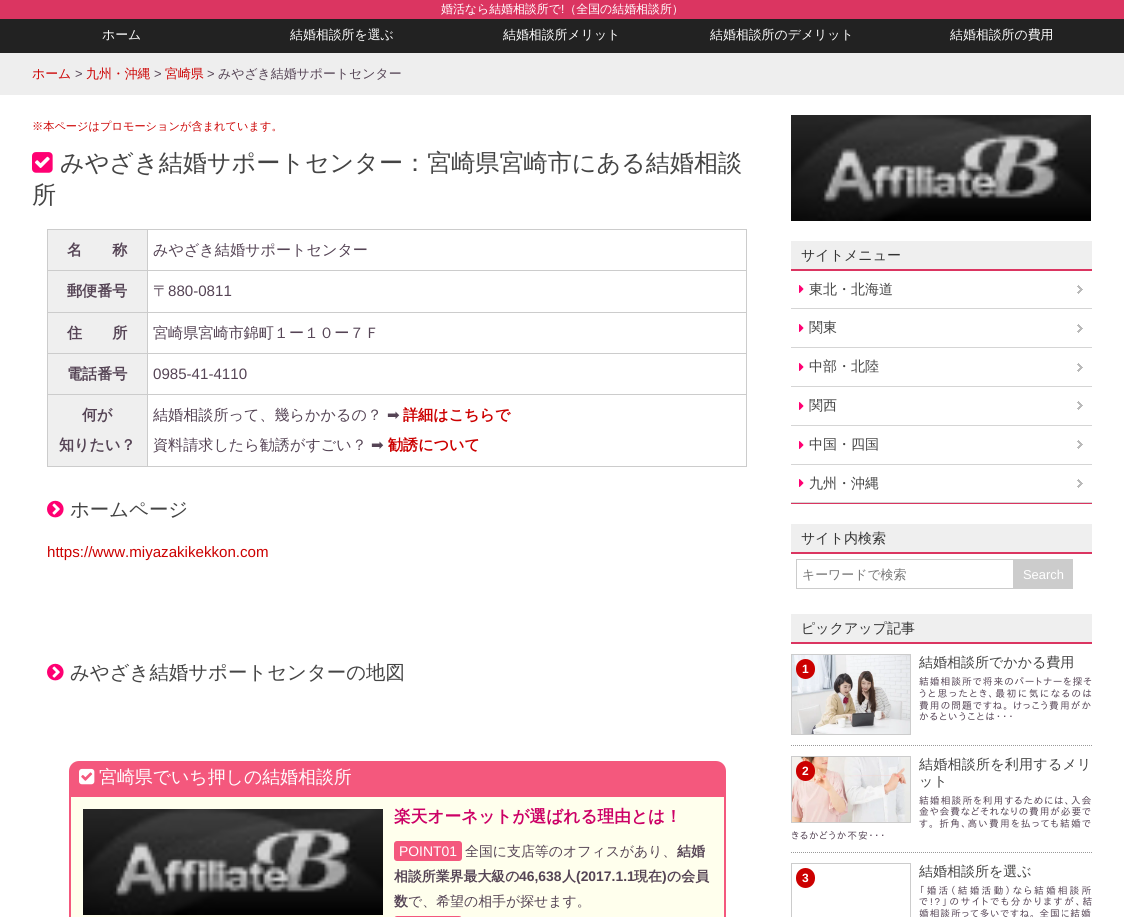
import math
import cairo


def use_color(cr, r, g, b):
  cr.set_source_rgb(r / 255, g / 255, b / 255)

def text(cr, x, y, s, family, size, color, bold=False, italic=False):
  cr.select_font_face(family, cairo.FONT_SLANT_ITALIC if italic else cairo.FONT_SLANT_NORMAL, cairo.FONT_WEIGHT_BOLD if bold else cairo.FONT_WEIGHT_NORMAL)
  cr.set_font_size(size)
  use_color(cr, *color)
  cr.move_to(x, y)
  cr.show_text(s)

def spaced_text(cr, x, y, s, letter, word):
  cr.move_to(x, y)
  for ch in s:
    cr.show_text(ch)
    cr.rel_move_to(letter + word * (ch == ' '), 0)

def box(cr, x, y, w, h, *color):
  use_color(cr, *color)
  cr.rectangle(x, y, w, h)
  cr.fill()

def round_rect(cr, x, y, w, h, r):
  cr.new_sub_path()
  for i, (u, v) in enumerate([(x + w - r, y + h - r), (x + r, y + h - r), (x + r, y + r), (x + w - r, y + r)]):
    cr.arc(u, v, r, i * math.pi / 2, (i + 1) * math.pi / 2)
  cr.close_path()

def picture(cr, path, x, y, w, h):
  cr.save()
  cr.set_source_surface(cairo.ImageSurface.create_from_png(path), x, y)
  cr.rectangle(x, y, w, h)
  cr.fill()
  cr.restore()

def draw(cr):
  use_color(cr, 255, 255, 255)
  cr.paint()
  box(cr, 0, 0, 1124, 19, 219, 53, 97)
  box(cr, 0, 19, 1124, 34, 34, 34, 34)
  box(cr, 0, 53, 1124, 42, 238, 238, 238)
  picture(cr, "img_01.png", 32, 152, 21, 21)
  box(cr, 47, 229, 700, 1, 204, 204, 204)
  box(cr, 746, 229, 1, 238, 204, 204, 204)
  box(cr, 47, 466, 700, 1, 204, 204, 204)
  box(cr, 47, 229, 1, 238, 204, 204, 204)
  box(cr, 48, 230, 99, 40, 239, 239, 239)
  box(cr, 147, 270, 600, 1, 204, 204, 204)
  box(cr, 147, 312, 600, 1, 204, 204, 204)
  box(cr, 147, 353, 600, 1, 204, 204, 204)
  box(cr, 147, 394, 600, 1, 204, 204, 204)
  box(cr, 147, 394, 1, 73, 204, 204, 204)
  box(cr, 47, 394, 101, 1, 204, 204, 204)
  box(cr, 147, 353, 1, 42, 204, 204, 204)
  box(cr, 47, 353, 101, 1, 204, 204, 204)
  box(cr, 147, 312, 1, 42, 204, 204, 204)
  box(cr, 47, 312, 101, 1, 204, 204, 204)
  box(cr, 147, 270, 1, 43, 204, 204, 204)
  box(cr, 47, 270, 101, 1, 204, 204, 204)
  box(cr, 147, 229, 1, 42, 204, 204, 204)
  box(cr, 48, 271, 99, 41, 239, 239, 239)
  box(cr, 48, 313, 99, 40, 239, 239, 239)
  box(cr, 48, 354, 99, 40, 239, 239, 239)
  box(cr, 48, 395, 99, 71, 239, 239, 239)
  picture(cr, "img_02.png", 47, 500, 17, 18)
  picture(cr, "img_02.png", 47, 663, 17, 18)
  use_color(cr, 244, 88, 125)
  cr.new_path()
  cr.move_to(79, 761)
  cr.line_to(716, 761)
  cr.curve_to(721.5, 761, 726, 765.5, 726, 771)
  cr.line_to(726, 795)
  cr.line_to(69, 795)
  cr.line_to(69, 771)
  cr.curve_to(69, 765.5, 73.5, 761, 79, 761)
  cr.close_path()
  cr.fill()
  picture(cr, "img_03.png", 79, 768, 16, 17)
  use_color(cr, 255, 255, 237)
  cr.rectangle(70, 796, 655, 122)
  cr.fill_preserve()
  use_color(cr, 244, 88, 125)
  cr.stroke()
  picture(cr, "img_04.png", 83, 809, 300, 106)
  round_rect(cr, 394, 841, 68, 20, 3)
  cr.fill()
  round_rect(cr, 394, 916, 68, 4, 3)
  cr.fill()
  picture(cr, "img_05.png", 791, 115, 300, 106)
  box(cr, 791, 503, 301, 1, 219, 53, 97)
  box(cr, 791, 241, 301, 28, 239, 239, 239)
  box(cr, 791, 269, 301, 2, 219, 53, 97)
  box(cr, 791, 308, 301, 1, 213, 213, 213)
  picture(cr, "img_06.png", 1077, 285, 6, 9)
  picture(cr, "img_07.png", 799, 285, 5, 8)
  box(cr, 791, 347, 301, 1, 213, 213, 213)
  picture(cr, "img_06.png", 1077, 324, 6, 9)
  picture(cr, "img_07.png", 799, 324, 5, 8)
  box(cr, 791, 386, 301, 1, 213, 213, 213)
  picture(cr, "img_06.png", 1077, 363, 6, 9)
  picture(cr, "img_07.png", 799, 363, 5, 8)
  box(cr, 791, 425, 301, 1, 213, 213, 213)
  picture(cr, "img_06.png", 1077, 401, 6, 9)
  picture(cr, "img_07.png", 799, 402, 5, 8)
  box(cr, 791, 464, 301, 1, 213, 213, 213)
  picture(cr, "img_06.png", 1077, 440, 6, 9)
  picture(cr, "img_07.png", 799, 441, 5, 8)
  box(cr, 791, 502, 301, 1, 213, 213, 213)
  picture(cr, "img_06.png", 1077, 479, 6, 9)
  picture(cr, "img_07.png", 799, 479, 5, 8)
  box(cr, 791, 524, 301, 28, 239, 239, 239)
  box(cr, 791, 552, 301, 2, 219, 53, 97)
  cr.rectangle(796.5, 559.5, 217, 29)
  use_color(cr, 204, 204, 204)
  cr.set_line_width(1)
  cr.stroke()
  box(cr, 1014, 559, 59, 30, 204, 204, 204)
  box(cr, 791, 614, 301, 28, 239, 239, 239)
  box(cr, 791, 642, 301, 2, 219, 53, 97)
  cr.new_path()
  cr.move_to(791, 745.5)
  cr.line_to(1092, 745.5)
  use_color(cr, 153, 153, 153)
  cr.set_dash([1, 1])
  cr.stroke()
  cr.rectangle(791.5, 654.5, 119, 80)
  use_color(cr, 204, 204, 204)
  cr.set_dash([])
  cr.stroke()
  picture(cr, "img_08.png", 792, 655, 118, 79)
  use_color(cr, 204, 0, 0)
  round_rect(cr, 796, 659, 19, 20, 9.5)
  cr.fill()
  cr.new_path()
  cr.move_to(791, 852.5)
  cr.line_to(1092, 852.5)
  use_color(cr, 153, 153, 153)
  cr.set_dash([1, 1])
  cr.stroke()
  cr.rectangle(791.5, 756.5, 119, 66)
  use_color(cr, 204, 204, 204)
  cr.set_dash([])
  cr.stroke()
  picture(cr, "img_09.png", 792, 757, 118, 65)
  use_color(cr, 204, 0, 0)
  round_rect(cr, 796, 761, 19, 20, 9.5)
  cr.fill()
  cr.rectangle(791.5, 863.5, 119, 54)
  use_color(cr, 204, 204, 204)
  cr.stroke()
  use_color(cr, 204, 0, 0)
  round_rect(cr, 796, 868, 19, 20, 9.5)
  cr.fill()
  text(cr, 441, 13, "婚活なら結婚相談所で （全国の結婚相談所）", "WenQuanYi Zen Hei Medium", 11.9, (255, 255, 255))
  text(cr, 561, 13, "!", "Liberation Sans", 11.9, (255, 255, 255))
  text(cr, 102, 39, "ホーム", "WenQuanYi Zen Hei Medium", 12.9, (255, 255, 255))
  text(cr, 290, 39, "結婚相談所を選ぶ", "WenQuanYi Zen Hei Medium", 12.9, (255, 255, 255))
  text(cr, 503, 39, "結婚相談所メリット", "WenQuanYi Zen Hei Medium", 12.9, (255, 255, 255))
  text(cr, 710, 39, "結婚相談所のデメリット", "WenQuanYi Zen Hei Medium", 12.9, (255, 255, 255))
  text(cr, 950, 39, "結婚相談所の費用", "WenQuanYi Zen Hei Medium", 12.9, (255, 255, 255))
  text(cr, 32, 78, "ホーム", "WenQuanYi Zen Hei Medium", 12.9, (204, 0, 0))
  text(cr, 75, 78, ">", "Liberation Sans", 12.9, (85, 68, 85))
  text(cr, 86, 78, "九州・沖縄", "WenQuanYi Zen Hei Medium", 12.9, (204, 0, 0))
  text(cr, 154, 78, ">", "Liberation Sans", 12.9, (85, 68, 85))
  text(cr, 165, 78, "宮崎県", "WenQuanYi Zen Hei Medium", 12.9, (204, 0, 0))
  text(cr, 207, 78, ">", "Liberation Sans", 12.9, (85, 68, 85))
  text(cr, 218, 78, "みやざき結婚サポートセンター", "WenQuanYi Zen Hei Medium", 12.9, (85, 68, 85))
  text(cr, 32, 130, "※本ページはプロモーションが含まれています。", "WenQuanYi Zen Hei Medium", 11.2, (204, 0, 0))
  text(cr, 60, 171, "みやざき結婚サポートセンター：宮崎県宮崎市にある結婚相談", "WenQuanYi Zen Hei Medium", 24.1, (68, 68, 68))
  text(cr, 32, 203, "所", "WenQuanYi Zen Hei Medium", 24.1, (68, 68, 68))
  text(cr, 67, 255, "名　　称", "WenQuanYi Zen Hei", 15.1, (85, 68, 85), bold=True)
  text(cr, 153, 255, "みやざき結婚サポートセンター", "WenQuanYi Zen Hei Medium", 15.1, (85, 68, 85))
  text(cr, 67, 296, "郵便番号", "WenQuanYi Zen Hei", 15.1, (85, 68, 85), bold=True)
  text(cr, 153, 296, "〒", "WenQuanYi Zen Hei Medium", 15.1, (85, 68, 85))
  text(cr, 168, 296, "880-0811", "Liberation Sans", 15.1, (85, 68, 85))
  text(cr, 67, 338, "住　　所", "WenQuanYi Zen Hei", 15.1, (85, 68, 85), bold=True)
  text(cr, 153, 338, "宮崎県宮崎市錦町１ー１０ー７Ｆ", "WenQuanYi Zen Hei Medium", 15.1, (85, 68, 85))
  text(cr, 67, 379, "電話番号", "WenQuanYi Zen Hei", 15.1, (85, 68, 85), bold=True)
  text(cr, 153, 379, "0985-41-4110", "Liberation Sans", 15.1, (85, 68, 85))
  text(cr, 82, 420, "何が", "WenQuanYi Zen Hei", 15.1, (85, 68, 85), bold=True)
  text(cr, 59, 450, "知りたい？", "WenQuanYi Zen Hei", 15.1, (85, 68, 85), bold=True)
  text(cr, 153, 420, "結婚相談所って、幾らかかるの？", "WenQuanYi Zen Hei Medium", 15.1, (85, 68, 85))
  text(cr, 387, 420, "➡", "DejaVu Sans", 15.1, (85, 68, 85))
  text(cr, 403, 420, "詳細はこちらで", "WenQuanYi Zen Hei", 15.1, (204, 0, 0), bold=True)
  text(cr, 153, 450, "資料請求したら勧誘がすごい？", "WenQuanYi Zen Hei Medium", 15.1, (85, 68, 85))
  text(cr, 371, 450, "➡", "DejaVu Sans", 15.1, (85, 68, 85))
  text(cr, 388, 450, "勧誘について", "WenQuanYi Zen Hei", 15.1, (204, 0, 0), bold=True)
  text(cr, 70, 516, "ホームページ", "WenQuanYi Zen Hei Medium", 19.4, (68, 68, 68))
  text(cr, 47, 557, "https://www.miyazakikekkon.com", "Liberation Sans", 15.1, (204, 0, 0))
  text(cr, 70, 679, "みやざき結婚サポートセンターの地図", "WenQuanYi Zen Hei Medium", 19.4, (68, 68, 68))
  text(cr, 99, 783, "宮崎県でいち押しの結婚相談所", "WenQuanYi Zen Hei Medium", 17.9, (255, 255, 255))
  text(cr, 394, 822, "楽天オーネットが選ばれる理由とは！", "WenQuanYi Zen Hei", 16.7, (204, 0, 102), bold=True)
  text(cr, 399, 856, "POINT01", "Liberation Sans", 13.9, (255, 255, 255))
  text(cr, 465, 856, "全国に支店等のオフィスがあり、", "WenQuanYi Zen Hei Medium", 13.9, (85, 68, 85))
  text(cr, 677, 856, "結婚", "WenQuanYi Zen Hei", 13.9, (85, 68, 85), bold=True)
  text(cr, 394, 881, "相談所業界最大級の", "WenQuanYi Zen Hei", 13.9, (85, 68, 85), bold=True)
  text(cr, 519, 881, "46,638", "Liberation Sans", 13.9, (85, 68, 85), bold=True)
  text(cr, 562, 881, "人", "WenQuanYi Zen Hei", 13.9, (85, 68, 85), bold=True)
  text(cr, 576, 881, "(2017.1.1", "Liberation Sans", 13.9, (85, 68, 85), bold=True)
  text(cr, 634, 881, "現在", "WenQuanYi Zen Hei", 13.9, (85, 68, 85), bold=True)
  text(cr, 662, 881, ")", "Liberation Sans", 13.9, (85, 68, 85), bold=True)
  text(cr, 667, 881, "の会員", "WenQuanYi Zen Hei", 13.9, (85, 68, 85), bold=True)
  text(cr, 394, 906, "数", "WenQuanYi Zen Hei", 13.9, (85, 68, 85), bold=True)
  text(cr, 408, 906, "で、希望の相手が探せます。", "WenQuanYi Zen Hei Medium", 13.9, (85, 68, 85))
  text(cr, 801, 260, "サイトメニュー", "WenQuanYi Zen Hei Medium", 14, (51, 51, 51))
  text(cr, 809, 294, "東北・北海道", "WenQuanYi Zen Hei Medium", 14, (68, 68, 68))
  text(cr, 809, 332, "関東", "WenQuanYi Zen Hei Medium", 14, (68, 68, 68))
  text(cr, 809, 371, "中部・北陸", "WenQuanYi Zen Hei Medium", 14, (68, 68, 68))
  text(cr, 809, 410, "関西", "WenQuanYi Zen Hei Medium", 14, (68, 68, 68))
  text(cr, 809, 449, "中国・四国", "WenQuanYi Zen Hei Medium", 14, (68, 68, 68))
  text(cr, 809, 488, "九州・沖縄", "WenQuanYi Zen Hei Medium", 14, (68, 68, 68))
  text(cr, 801, 543, "サイト内検索", "WenQuanYi Zen Hei Medium", 14, (51, 51, 51))
  text(cr, 802, 579, "キーワードで検索", "WenQuanYi Zen Hei Medium", 12.9, (117, 117, 117))
  text(cr, 1023, 579, "Search", "Liberation Sans", 12.9, (255, 255, 255))
  text(cr, 801, 633, "ピックアップ記事", "WenQuanYi Zen Hei Medium", 14, (51, 51, 51))
  text(cr, 802, 673, "1", "Liberation Sans", 12, (255, 255, 255), bold=True)
  text(cr, 919, 667, "結婚相談所でかかる費用", "WenQuanYi Zen Hei Medium", 14, (68, 68, 68))
  cr.select_font_face("IPAPGothic")
  cr.set_font_size(9.75)
  use_color(cr, 85, 68, 85)
  spaced_text(cr, 919, 685, "結婚相談所で将来のパートナーを探そ", 1, 0)
  spaced_text(cr, 919, 697, "うと思ったとき、最初に気になるのは", 1.7, 0)
  spaced_text(cr, 919, 709, "費用の問題ですね。 けっこう費用がか", 1.1, 0)
  spaced_text(cr, 919, 720, "かるということは･･･", 1.3, 0)
  text(cr, 802, 775, "2", "Liberation Sans", 12, (255, 255, 255), bold=True)
  cr.select_font_face("WenQuanYi Zen Hei Medium")
  cr.set_font_size(14)
  use_color(cr, 68, 68, 68)
  spaced_text(cr, 919, 769, "結婚相談所を利用するメリ", 0.25, 0)
  text(cr, 919, 786, "ット", "WenQuanYi Zen Hei Medium", 14, (68, 68, 68))
  cr.select_font_face("IPAPGothic")
  cr.set_font_size(9.75)
  use_color(cr, 85, 68, 85)
  spaced_text(cr, 919, 804, "結婚相談所を利用するためには、入会", 1.1, 0)
  spaced_text(cr, 919, 815, "金や会費などそれなりの費用が必要で", 0.9, 0)
  spaced_text(cr, 919, 827, "す。 折角、高い費用を払っても結婚で", 1.3, 0)
  spaced_text(cr, 791, 839, "きるかどうか不安･･･", 0.9, 0)
  text(cr, 802, 882, "3", "Liberation Sans", 12, (255, 255, 255), bold=True)
  text(cr, 919, 876, "結婚相談所を選ぶ", "WenQuanYi Zen Hei Medium", 14, (68, 68, 68))
  cr.select_font_face("IPAPGothic")
  cr.set_font_size(9.75)
  use_color(cr, 85, 68, 85)
  spaced_text(cr, 919, 894, "「婚活（結婚活動）なら結婚相談所", 2.1, 0)
  spaced_text(cr, 919, 905, "で", 1.9, 0)
  cr.select_font_face("Liberation Sans")
  spaced_text(cr, 930, 905, "!?", 1.9, 0)
  cr.select_font_face("IPAPGothic")
  spaced_text(cr, 942, 905, "」のサイトでも分かりますが、結", 1.9, 0)
  spaced_text(cr, 919, 917, "婚相談所って多いですね。 全国に結婚", 0.9, 0)


surface = cairo.ImageSurface(cairo.FORMAT_RGB24, 1124, 917)
cr = cairo.Context(surface)
options = cairo.FontOptions()
options.set_hint_metrics(cairo.HINT_METRICS_OFF)
options.set_hint_style(cairo.HINT_STYLE_NONE)
cr.set_font_options(options)
cr.set_miter_limit(4)
draw(cr)
surface.write_to_png("out.png")
